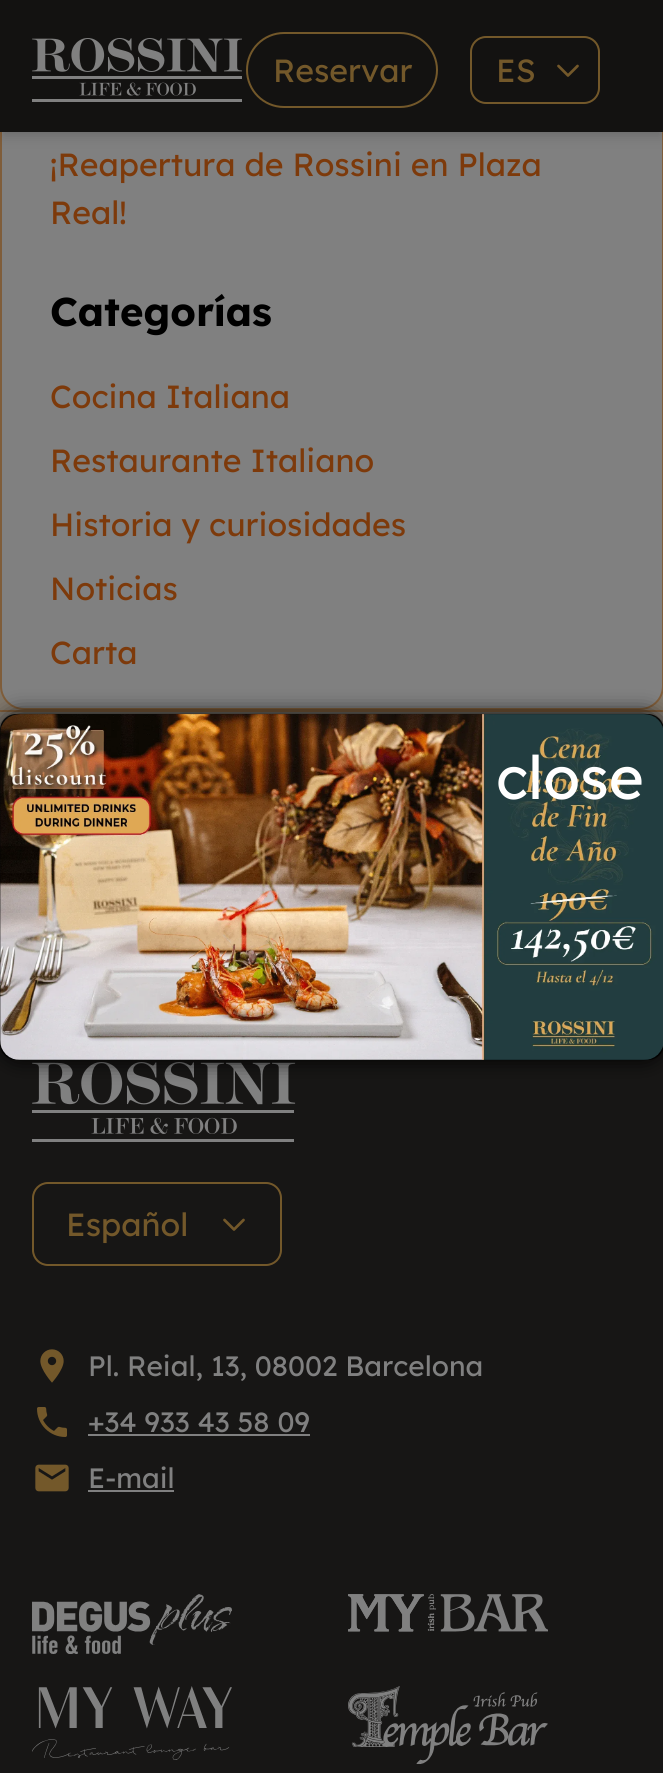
import math
import cairo


def use_color(cr, r, g, b):
  cr.set_source_rgb(r / 255, g / 255, b / 255)

def text(cr, x, y, s, family, size, color, bold=False, italic=False):
  cr.select_font_face(family, cairo.FONT_SLANT_ITALIC if italic else cairo.FONT_SLANT_NORMAL, cairo.FONT_WEIGHT_BOLD if bold else cairo.FONT_WEIGHT_NORMAL)
  cr.set_font_size(size)
  use_color(cr, *color)
  cr.move_to(x, y)
  cr.show_text(s)

def box(cr, x, y, w, h, *color):
  use_color(cr, *color)
  cr.rectangle(x, y, w, h)
  cr.fill()

def round_rect(cr, x, y, w, h, r):
  cr.new_sub_path()
  for i, (u, v) in enumerate([(x + w - r, y + h - r), (x + r, y + h - r), (x + r, y + r), (x + w - r, y + r)]):
    cr.arc(u, v, r, i * math.pi / 2, (i + 1) * math.pi / 2)
  cr.close_path()

def shadow(cr, x, y, w, h, r, blur, alpha):
  cr.push_group_with_content(cairo.CONTENT_ALPHA)
  cr.set_operator(cairo.OPERATOR_SOURCE)
  for i in range(15, -16, -2):
    e = blur * i / 6
    if min(w, h) + 2 * e > 0:
      cr.set_source_rgba(0, 0, 0, alpha * math.erfc((i - 1) / 8.5) / 2)
      round_rect(cr, x - e, y - e, w + 2 * e, h + 2 * e, max(0, min(r + e + blur * .6, min(w, h) / 2 + e)))
      cr.fill()
  cr.mask(cr.pop_group())

def picture(cr, path, x, y, w, h):
  cr.save()
  cr.set_source_surface(cairo.ImageSurface.create_from_png(path), x, y)
  cr.rectangle(x, y, w, h)
  cr.fill()
  cr.restore()

def draw(cr):
  use_color(cr, 128, 122, 113)
  cr.paint()
  box(cr, 0, 686, 663, 24, 128, 119, 107)
  use_color(cr, 128, 128, 128)
  round_rect(cr, 1, -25, 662, 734, 23)
  cr.fill_preserve()
  use_color(cr, 127, 93, 58)
  cr.stroke()
  use_color(cr, 0, 0, 0)
  shadow(cr, 4, 8, 656, 124, 0, 4, 0.1)
  shadow(cr, 2, 10, 660, 128, 0, 6, 0.1)
  box(cr, 0, 0, 663, 132, 19, 18, 17)
  picture(cr, "img_01.png", 32, 38, 210, 64)
  round_rect(cr, 247, 33, 190, 74, 37)
  use_color(cr, 115, 88, 42)
  cr.stroke()
  round_rect(cr, 471, 37, 128, 66, 15)
  cr.stroke()
  cr.new_path()
  cr.move_to(577.5, 66)
  cr.line_to(568, 75.5)
  cr.line_to(558.5, 66)
  cr.set_line_width(2.7)
  cr.set_line_cap(cairo.LINE_CAP_ROUND)
  cr.set_line_join(cairo.LINE_JOIN_ROUND)
  cr.stroke()
  box(cr, 0, 710, 663, 2, 127, 93, 58)
  box(cr, 0, 934, 663, 839, 23, 22, 21)
  box(cr, 0, 932, 1, 2, 16, 21, 28)
  cr.set_source_rgba(0, 0, 0, 0.9)
  round_rect(cr, 0, 714, 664, 346, 16)
  cr.fill()
  picture(cr, "img_03.png", 32, 1062, 264, 80)
  use_color(cr, 0, 0, 0)
  shadow(cr, 0, 714, 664, 346, 20, 10, 1)
  picture(cr, "img_02.png", 0, 714, 663, 346)
  round_rect(cr, 33, 1183, 248, 82, 15)
  use_color(cr, 115, 88, 42)
  cr.set_line_width(2)
  cr.set_line_cap(cairo.LINE_CAP_BUTT)
  cr.set_line_join(cairo.LINE_JOIN_MITER)
  cr.stroke()
  cr.new_path()
  cr.move_to(243.5, 1220)
  cr.line_to(234, 1229.5)
  cr.line_to(224.5, 1220)
  cr.set_line_width(2.7)
  cr.set_line_cap(cairo.LINE_CAP_ROUND)
  cr.set_line_join(cairo.LINE_JOIN_ROUND)
  cr.stroke()
  picture(cr, "img_04.png", 40, 1349, 24, 34)
  picture(cr, "img_05.png", 37, 1407, 30, 30)
  box(cr, 88, 1434, 222, 2, 128, 128, 128)
  picture(cr, "img_06.png", 35, 1464, 34, 28)
  box(cr, 88, 1490, 86, 2, 128, 128, 128)
  picture(cr, "img_07.png", 32, 1594, 200, 60)
  picture(cr, "img_08.png", 348, 1594, 200, 38)
  picture(cr, "img_09.png", 32, 1686, 200, 74)
  picture(cr, "img_10.png", 348, 1686, 200, 78)
  text(cr, 273, 82, "Reservar", "Lexend", 32, (115, 88, 42))
  text(cr, 496, 82, "ES", "Lexend", 32, (115, 88, 42))
  text(cr, 50, 176, "¡Reapertura de Rossini en Plaza", "Lexend", 32, (125, 58, 11))
  text(cr, 50, 224, "Real!", "Lexend", 32, (125, 58, 11))
  text(cr, 50, 326, "Categorías", "Lexend", 40, (0, 0, 0), bold=True)
  text(cr, 50, 408, "Cocina Italiana", "Lexend", 32, (125, 58, 11))
  text(cr, 50, 472, "Restaurante Italiano", "Lexend", 32, (125, 58, 11))
  text(cr, 50, 536, "Historia y curiosidades", "Lexend", 32, (125, 58, 11))
  text(cr, 50, 600, "Noticias", "Lexend", 32, (125, 58, 11))
  text(cr, 50, 664, "Carta", "Lexend", 32, (125, 58, 11))
  text(cr, 496, 799, "close", "Lexend", 60, (255, 255, 255))
  text(cr, 66, 1236, "Español", "Lexend", 32, (115, 88, 42))
  text(cr, 88, 1376, "Pl. Reial, 13, 08002 Barcelona", "Lexend", 28, (128, 128, 128))
  text(cr, 88, 1432, "+34 933 43 58 09", "Lexend", 28, (128, 128, 128))
  text(cr, 88, 1488, "E-mail", "Lexend", 28, (128, 128, 128))


surface = cairo.ImageSurface(cairo.FORMAT_RGB24, 663, 1773)
cr = cairo.Context(surface)
options = cairo.FontOptions()
options.set_hint_metrics(cairo.HINT_METRICS_OFF)
options.set_hint_style(cairo.HINT_STYLE_NONE)
cr.set_font_options(options)
cr.set_miter_limit(4)
draw(cr)
surface.write_to_png("out.png")
